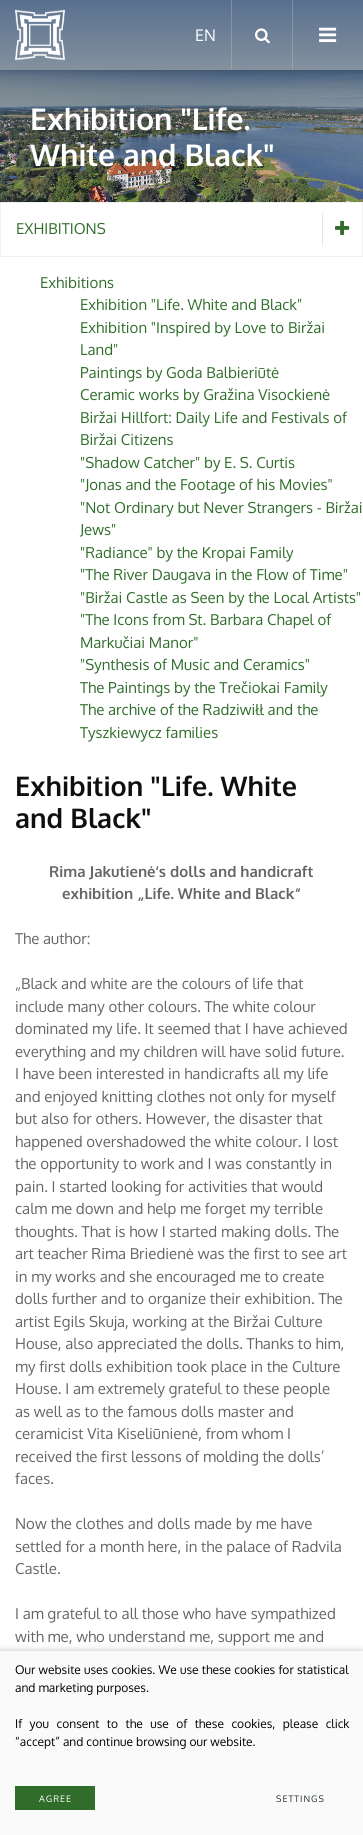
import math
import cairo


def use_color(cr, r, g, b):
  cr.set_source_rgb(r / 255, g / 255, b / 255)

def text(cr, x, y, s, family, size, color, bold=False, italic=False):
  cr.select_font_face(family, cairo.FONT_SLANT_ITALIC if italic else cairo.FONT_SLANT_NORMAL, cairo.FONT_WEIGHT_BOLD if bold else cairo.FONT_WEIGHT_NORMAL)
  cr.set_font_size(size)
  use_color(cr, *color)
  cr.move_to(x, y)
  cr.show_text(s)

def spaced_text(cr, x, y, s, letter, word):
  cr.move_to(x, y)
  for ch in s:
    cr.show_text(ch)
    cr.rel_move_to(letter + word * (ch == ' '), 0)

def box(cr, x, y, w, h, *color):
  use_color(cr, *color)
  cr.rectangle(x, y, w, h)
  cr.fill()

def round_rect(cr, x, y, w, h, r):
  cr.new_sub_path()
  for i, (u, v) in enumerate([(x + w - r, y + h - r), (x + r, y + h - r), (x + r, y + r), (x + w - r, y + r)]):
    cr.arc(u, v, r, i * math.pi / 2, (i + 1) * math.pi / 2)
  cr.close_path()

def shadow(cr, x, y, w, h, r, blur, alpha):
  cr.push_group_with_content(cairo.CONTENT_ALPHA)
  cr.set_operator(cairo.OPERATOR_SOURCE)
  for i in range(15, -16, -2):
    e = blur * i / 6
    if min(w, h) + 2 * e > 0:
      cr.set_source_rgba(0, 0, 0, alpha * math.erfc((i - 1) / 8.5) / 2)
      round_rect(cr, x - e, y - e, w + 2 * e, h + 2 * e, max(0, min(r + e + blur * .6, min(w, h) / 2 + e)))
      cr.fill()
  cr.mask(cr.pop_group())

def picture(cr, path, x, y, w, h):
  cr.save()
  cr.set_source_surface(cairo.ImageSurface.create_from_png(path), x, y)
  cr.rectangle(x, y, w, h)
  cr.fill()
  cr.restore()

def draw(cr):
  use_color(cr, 255, 255, 255)
  cr.paint()
  picture(cr, "img_04.png", 0, 70, 363, 132)
  use_color(cr, 0, 0, 0)
  shadow(cr, 0, 0, 363, 70, 0, 3.5, 0.15)
  gradient = cairo.LinearGradient(182, 0, 182, 70)
  gradient.add_color_stop_rgba(0, 0.345, 0.439, 0.561, 1)
  gradient.add_color_stop_rgba(1, 0.518, 0.569, 0.62, 1)
  cr.set_source(gradient)
  cr.rectangle(0, 0, 363, 70)
  cr.fill()
  gradient = cairo.LinearGradient(182, 0, 182, 70)
  gradient.add_color_stop_rgba(0, 0.471, 0.565, 0.608, 1)
  gradient.add_color_stop_rgba(1, 0.588, 0.655, 0.651, 1)
  cr.set_source(gradient)
  cr.rectangle(292, 0, 1, 70)
  cr.fill()
  cr.rectangle(231, 0, 1, 70)
  cr.fill()
  picture(cr, "img_01.png", 15, 9, 50, 51)
  picture(cr, "img_02.png", 319, 27, 18, 15)
  picture(cr, "img_03.png", 255, 28, 15, 16)
  cr.rectangle(0.5, 202.5, 362, 54)
  use_color(cr, 241, 241, 241)
  cr.set_line_width(1)
  cr.stroke()
  box(cr, 322, 213, 1, 33, 230, 230, 230)
  picture(cr, "img_05.png", 335, 220, 15, 15)
  use_color(cr, 0, 0, 0)
  shadow(cr, 0, 1651, 363, 184, 0, 3.5, 0.25)
  box(cr, 0, 1651, 363, 184, 250, 250, 250)
  box(cr, 15, 1786, 80, 24, 48, 109, 43)
  text(cr, 195, 41, "EN", "Oxygen", 16, (255, 255, 255))
  text(cr, 30, 130, "Exhibition \"Life.", "Oxygen", 30, (255, 255, 255), bold=True)
  text(cr, 30, 166, "White and Black\"", "Oxygen", 30, (255, 255, 255), bold=True)
  text(cr, 16, 234, "EXHIBITIONS", "Oxygen", 15, (48, 109, 43))
  text(cr, 40, 288, "Exhibitions", "Oxygen", 15, (48, 109, 43))
  text(cr, 80, 310, "Exhibition \"Life. White and Black\"", "Oxygen", 15, (48, 109, 43))
  text(cr, 80, 333, "Exhibition \"Inspired by Love to Biržai", "Oxygen", 15, (48, 109, 43))
  text(cr, 80, 355, "Land\"", "Oxygen", 15, (48, 109, 43))
  text(cr, 80, 378, "Paintings by Goda Balbieriūtė", "Oxygen", 15, (48, 109, 43))
  text(cr, 80, 400, "Ceramic works by Gražina Visockienė", "Oxygen", 15, (48, 109, 43))
  text(cr, 80, 423, "Biržai Hillfort: Daily Life and Festivals of", "Oxygen", 15, (48, 109, 43))
  text(cr, 80, 445, "Biržai Citizens", "Oxygen", 15, (48, 109, 43))
  text(cr, 80, 468, "\"Shadow Catcher\" by E. S. Curtis", "Oxygen", 15, (48, 109, 43))
  text(cr, 80, 490, "\"Jonas and the Footage of his Movies\"", "Oxygen", 15, (48, 109, 43))
  text(cr, 80, 513, "\"Not Ordinary but Never Strangers - Biržai", "Oxygen", 15, (48, 109, 43))
  text(cr, 80, 535, "Jews\"", "Oxygen", 15, (48, 109, 43))
  text(cr, 80, 558, "\"Radiance\" by the Kropai Family", "Oxygen", 15, (48, 109, 43))
  text(cr, 80, 580, "\"The River Daugava in the Flow of Time\"", "Oxygen", 15, (48, 109, 43))
  text(cr, 80, 603, "\"Biržai Castle as Seen by the Local Artists\"", "Oxygen", 15, (48, 109, 43))
  text(cr, 80, 625, "\"The Icons from St. Barbara Chapel of", "Oxygen", 15, (48, 109, 43))
  text(cr, 80, 648, "Markučiai Manor\"", "Oxygen", 15, (48, 109, 43))
  text(cr, 80, 670, "\"Synthesis of Music and Ceramics\"", "Oxygen", 15, (48, 109, 43))
  text(cr, 80, 693, "The Paintings by the Trečiokai Family", "Oxygen", 15, (48, 109, 43))
  text(cr, 80, 715, "The archive of the Radziwiłł and the", "Oxygen", 15, (48, 109, 43))
  text(cr, 80, 738, "Tyszkiewycz families", "Oxygen", 15, (48, 109, 43))
  text(cr, 15, 796, "Exhibition \"Life. White", "Oxygen", 27, (15, 15, 15), bold=True)
  text(cr, 15, 828, "and Black\"", "Oxygen", 27, (15, 15, 15), bold=True)
  text(cr, 49, 877, "Rima Jakutienė‘s dolls and handicraft", "Oxygen", 15, (101, 101, 101), bold=True)
  text(cr, 62, 899, "exhibition „Life. White and Black“", "Oxygen", 15, (101, 101, 101), bold=True)
  text(cr, 15, 944, "The author:", "Oxygen", 15, (101, 101, 101))
  text(cr, 15, 989, "„Black and white are the colours of life that", "Oxygen", 15, (101, 101, 101))
  text(cr, 15, 1012, "include many other colours. The white colour", "Oxygen", 15, (101, 101, 101))
  text(cr, 15, 1034, "dominated my life. It seemed that I have achieved", "Oxygen", 15, (101, 101, 101))
  text(cr, 15, 1057, "everything and my children will have solid future.", "Oxygen", 15, (101, 101, 101))
  text(cr, 15, 1079, "I have been interested in handicrafts all my life", "Oxygen", 15, (101, 101, 101))
  text(cr, 15, 1102, "and enjoyed knitting clothes not only for myself", "Oxygen", 15, (101, 101, 101))
  text(cr, 15, 1124, "but also for others. However, the disaster that", "Oxygen", 15, (101, 101, 101))
  text(cr, 15, 1147, "happened overshadowed the white colour. I lost", "Oxygen", 15, (101, 101, 101))
  text(cr, 15, 1169, "the opportunity to work and I was constantly in", "Oxygen", 15, (101, 101, 101))
  text(cr, 15, 1192, "pain. I started looking for activities that would", "Oxygen", 15, (101, 101, 101))
  text(cr, 15, 1214, "calm me down and help me forget my terrible", "Oxygen", 15, (101, 101, 101))
  text(cr, 15, 1237, "thoughts. That is how I started making dolls. The", "Oxygen", 15, (101, 101, 101))
  text(cr, 15, 1259, "art teacher Rima Briedienė was the first to see art", "Oxygen", 15, (101, 101, 101))
  text(cr, 15, 1282, "in my works and she encouraged me to create", "Oxygen", 15, (101, 101, 101))
  text(cr, 15, 1304, "dolls further and to organize their exhibition. The", "Oxygen", 15, (101, 101, 101))
  text(cr, 15, 1327, "artist Egils Skuja, working at the Biržai Culture", "Oxygen", 15, (101, 101, 101))
  text(cr, 15, 1349, "House, also appreciated the dolls. Thanks to him,", "Oxygen", 15, (101, 101, 101))
  text(cr, 15, 1372, "my first dolls exhibition took place in the Culture", "Oxygen", 15, (101, 101, 101))
  text(cr, 15, 1394, "House. I am extremely grateful to these people", "Oxygen", 15, (101, 101, 101))
  text(cr, 15, 1417, "as well as to the famous dolls master and", "Oxygen", 15, (101, 101, 101))
  text(cr, 15, 1439, "ceramicist Vita Kiseliūnienė, from whom I", "Oxygen", 15, (101, 101, 101))
  text(cr, 15, 1462, "received the first lessons of molding the dolls’", "Oxygen", 15, (101, 101, 101))
  text(cr, 15, 1484, "faces.", "Oxygen", 15, (101, 101, 101))
  text(cr, 15, 1529, "Now the clothes and dolls made by me have", "Oxygen", 15, (101, 101, 101))
  text(cr, 15, 1552, "settled for a month here, in the palace of Radvila", "Oxygen", 15, (101, 101, 101))
  text(cr, 15, 1574, "Castle.", "Oxygen", 15, (101, 101, 101))
  text(cr, 15, 1619, "I am grateful to all those who have sympathized", "Oxygen", 15, (101, 101, 101))
  text(cr, 15, 1642, "with me, who understand me, support me and", "Oxygen", 15, (101, 101, 101))
  cr.set_font_size(12)
  use_color(cr, 0, 0, 0)
  spaced_text(cr, 15, 1674, "Our website uses cookies. We use these cookies for statistical", 0, 0.25)
  text(cr, 15, 1692, "and marketing purposes.", "Oxygen", 12, (0, 0, 0))
  spaced_text(cr, 15, 1728, "If you consent to the use of these cookies, please click", 0, 4.5)
  text(cr, 15, 1746, "“accept” and continue browsing our website.", "Oxygen", 12, (0, 0, 0))
  cr.set_font_size(9)
  use_color(cr, 255, 255, 255)
  spaced_text(cr, 39, 1802, "AGREE", 1, 0)
  use_color(cr, 38, 50, 56)
  spaced_text(cr, 276, 1802, "SETTINGS", 1, 0)


surface = cairo.ImageSurface(cairo.FORMAT_RGB24, 363, 1835)
cr = cairo.Context(surface)
options = cairo.FontOptions()
options.set_hint_metrics(cairo.HINT_METRICS_OFF)
options.set_hint_style(cairo.HINT_STYLE_NONE)
cr.set_font_options(options)
cr.set_miter_limit(4)
draw(cr)
surface.write_to_png("out.png")
